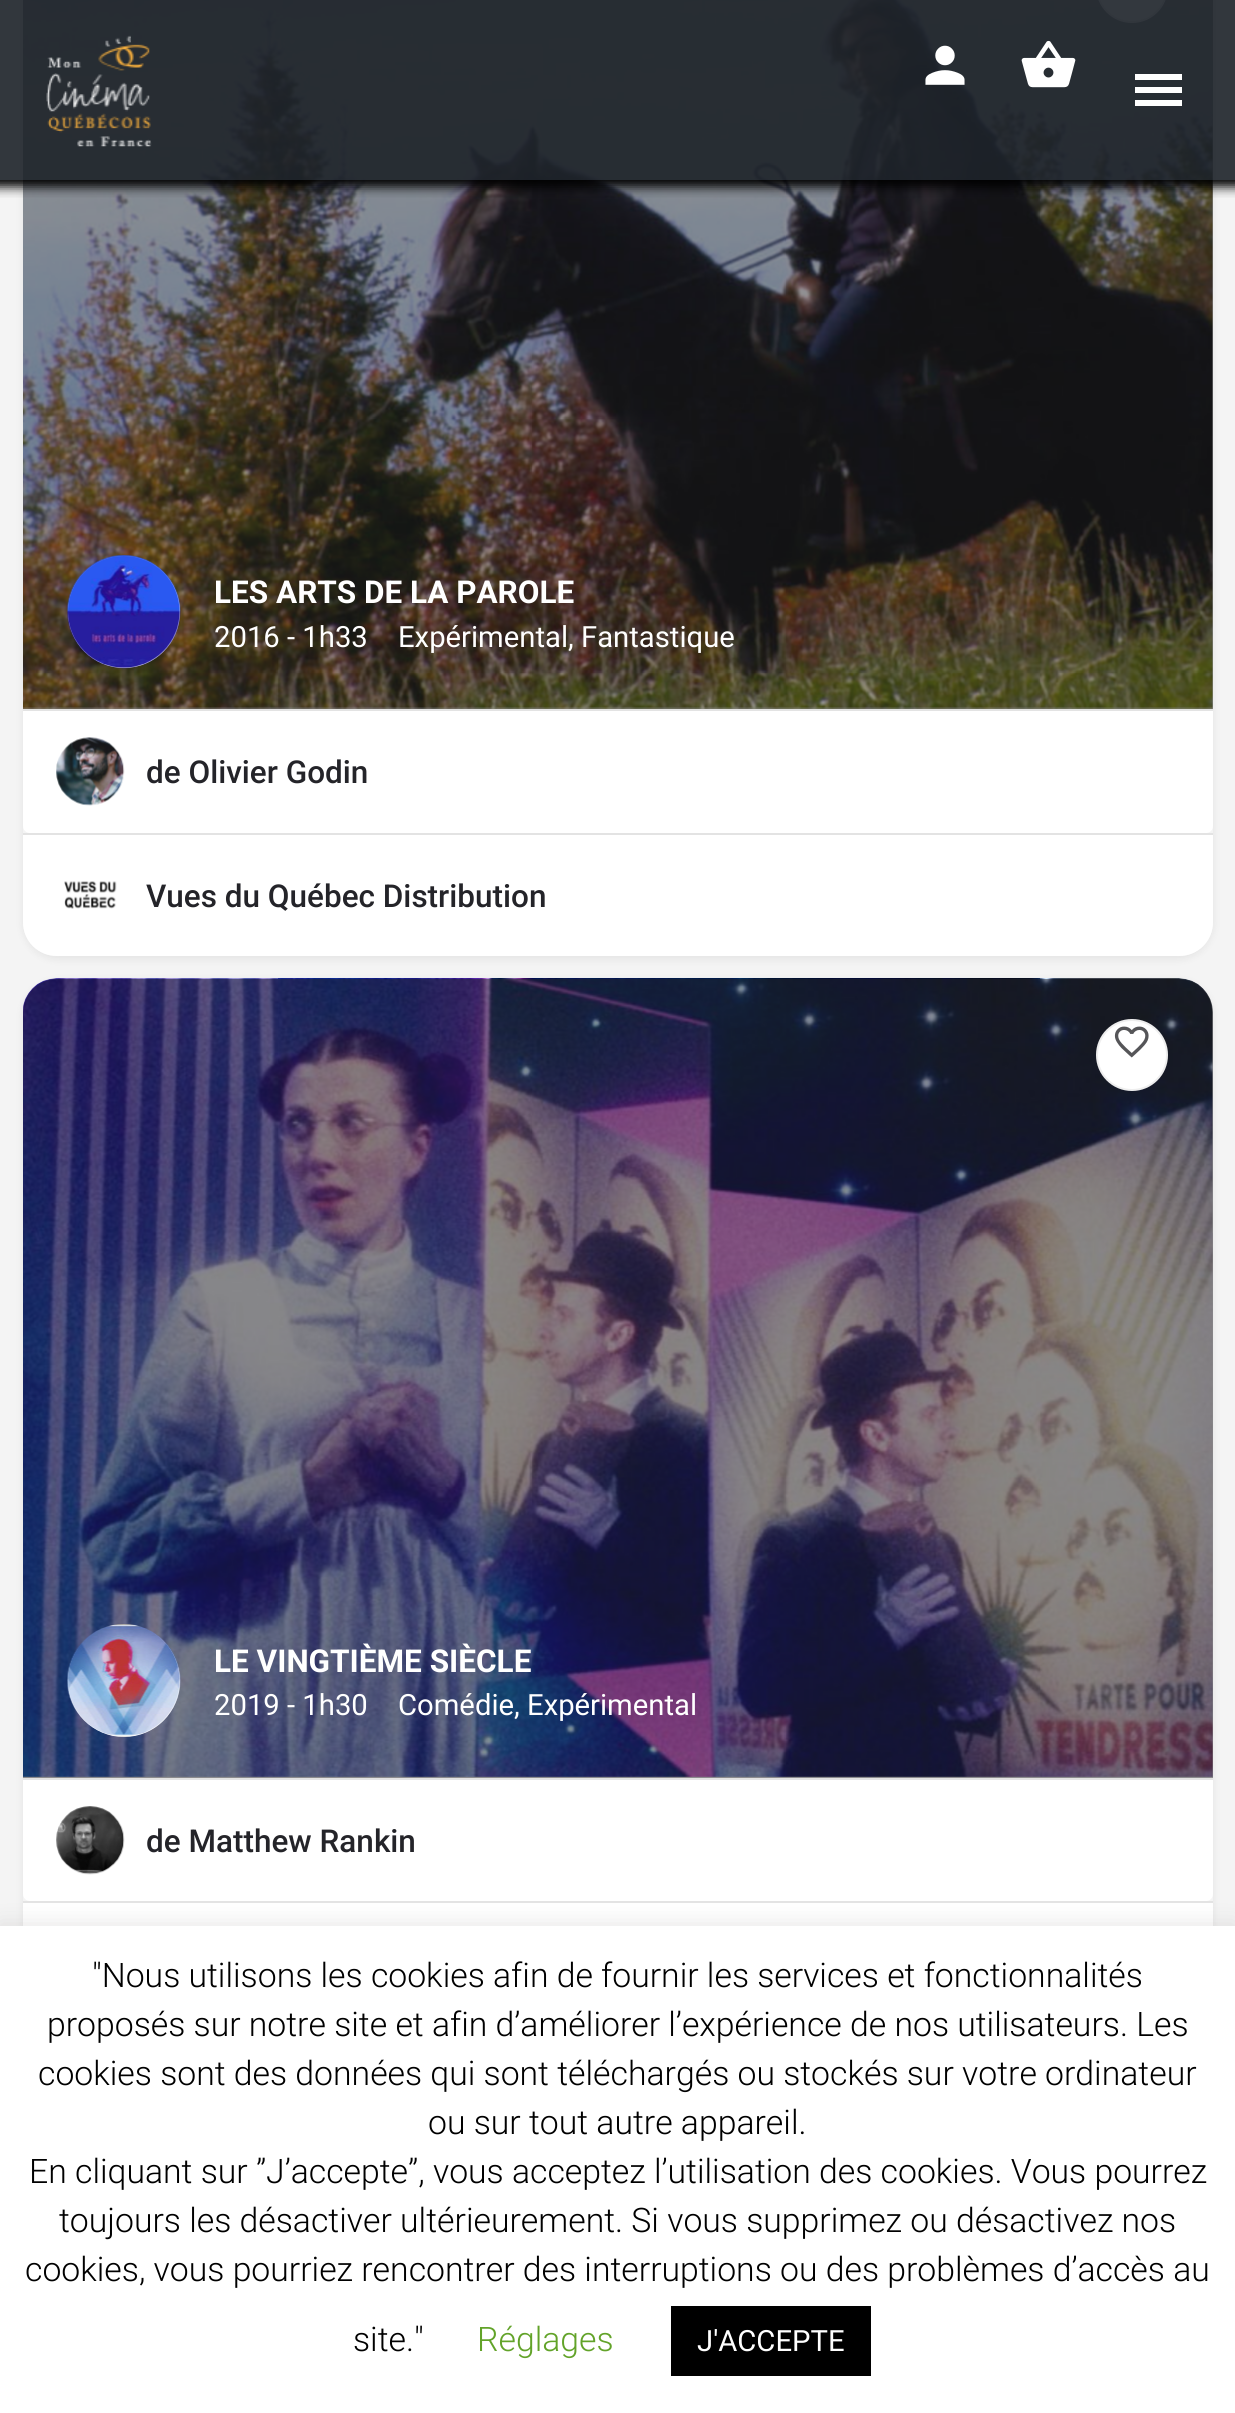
import math
import cairo


def use_color(cr, r, g, b):
  cr.set_source_rgb(r / 255, g / 255, b / 255)

def text(cr, x, y, s, family, size, color, bold=False, italic=False):
  cr.select_font_face(family, cairo.FONT_SLANT_ITALIC if italic else cairo.FONT_SLANT_NORMAL, cairo.FONT_WEIGHT_BOLD if bold else cairo.FONT_WEIGHT_NORMAL)
  cr.set_font_size(size)
  use_color(cr, *color)
  cr.move_to(x, y)
  cr.show_text(s)

def box(cr, x, y, w, h, *color):
  use_color(cr, *color)
  cr.rectangle(x, y, w, h)
  cr.fill()

def round_rect(cr, x, y, w, h, r):
  cr.new_sub_path()
  for i, (u, v) in enumerate([(x + w - r, y + h - r), (x + r, y + h - r), (x + r, y + r), (x + w - r, y + r)]):
    cr.arc(u, v, r, i * math.pi / 2, (i + 1) * math.pi / 2)
  cr.close_path()

def shadow(cr, x, y, w, h, r, blur, alpha):
  cr.push_group_with_content(cairo.CONTENT_ALPHA)
  cr.set_operator(cairo.OPERATOR_SOURCE)
  for i in range(15, -16, -2):
    e = blur * i / 6
    if min(w, h) + 2 * e > 0:
      cr.set_source_rgba(0, 0, 0, alpha * math.erfc((i - 1) / 8.5) / 2)
      round_rect(cr, x - e, y - e, w + 2 * e, h + 2 * e, max(0, min(r + e + blur * .6, min(w, h) / 2 + e)))
      cr.fill()
  cr.mask(cr.pop_group())

def picture(cr, path, x, y, w, h):
  cr.save()
  cr.set_source_surface(cairo.ImageSurface.create_from_png(path), x, y)
  cr.rectangle(x, y, w, h)
  cr.fill()
  cr.restore()

def draw(cr):
  use_color(cr, 244, 244, 244)
  cr.paint()
  cr.save()
  cr.set_fill_rule(cairo.FILL_RULE_EVEN_ODD)
  cr.new_path()
  cr.move_to(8, 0)
  cr.line_to(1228, 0)
  cr.line_to(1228, 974)
  cr.line_to(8, 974)
  cr.close_path()
  cr.move_to(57, -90)
  cr.line_to(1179, -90)
  cr.curve_to(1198, -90, 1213, -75, 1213, -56)
  cr.line_to(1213, 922)
  cr.curve_to(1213, 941, 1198, 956, 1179, 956)
  cr.line_to(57, 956)
  cr.curve_to(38, 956, 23, 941, 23, 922)
  cr.line_to(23, -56)
  cr.curve_to(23, -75, 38, -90, 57, -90)
  cr.close_path()
  cr.clip()
  use_color(cr, 0, 0, 0)
  shadow(cr, 23, -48, 1190, 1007, 34, 4.5, 0.07)
  cr.restore()
  picture(cr, "img_04.png", 23, 0, 1190, 709)
  cr.set_source_rgba(0.141, 0.141, 0.161, 0.5)
  cr.rectangle(23, 0, 1190, 709)
  cr.fill()
  use_color(cr, 255, 255, 255)
  round_rect(cr, 1096, -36, 72, 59, 36)
  cr.fill()
  round_rect(cr, 1097, -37, 70, 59, 35)
  cr.set_source_rgba(0, 0, 0, 0.07)
  cr.stroke()
  cr.save()
  cr.rectangle(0, 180, 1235, 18)
  cr.clip()
  use_color(cr, 0, 0, 0)
  shadow(cr, -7, -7, 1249, 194, 0, 5.5, 1)
  cr.restore()
  cr.set_source_rgba(0.114, 0.137, 0.161, 0.9)
  cr.rectangle(0, 0, 1235, 180)
  cr.fill()
  picture(cr, "img_01.png", 46, 35, 106, 112)
  use_color(cr, 255, 255, 255)
  cr.new_path()
  cr.move_to(1135, 74)
  cr.line_to(1182, 74)
  cr.line_to(1182, 80)
  cr.line_to(1135, 80)
  cr.close_path()
  cr.move_to(1135, 93)
  cr.line_to(1135, 87)
  cr.line_to(1182, 87)
  cr.line_to(1182, 93)
  cr.close_path()
  cr.move_to(1135, 106)
  cr.line_to(1135, 100)
  cr.line_to(1182, 100)
  cr.line_to(1182, 106)
  cr.close_path()
  cr.fill()
  picture(cr, "img_02.png", 925, 45, 40, 40)
  picture(cr, "img_03.png", 1021, 40, 55, 48)
  cr.arc(124, 612, 56, 0, 2 * math.pi)
  cr.fill()
  picture(cr, "img_05.png", 67, 555, 114, 114)
  cr.new_path()
  cr.move_to(23, 709)
  cr.line_to(1213, 709)
  cr.line_to(1213, 826)
  cr.curve_to(1213, 830, 1210, 833, 1206, 833)
  cr.line_to(30, 833)
  cr.curve_to(26, 833, 23, 830, 23, 826)
  cr.close_path()
  cr.fill()
  box(cr, 23, 709, 1190, 2, 227, 227, 227)
  picture(cr, "img_06.png", 56, 737, 69, 69)
  use_color(cr, 255, 255, 255)
  cr.new_path()
  cr.move_to(23, 833)
  cr.line_to(1213, 833)
  cr.line_to(1213, 922)
  cr.curve_to(1213, 941, 1198, 956, 1179, 956)
  cr.line_to(57, 956)
  cr.curve_to(38, 956, 23, 941, 23, 922)
  cr.close_path()
  cr.fill()
  box(cr, 23, 833, 1190, 2, 227, 227, 227)
  picture(cr, "img_07.png", 64, 881, 53, 28)
  cr.save()
  cr.set_fill_rule(cairo.FILL_RULE_EVEN_ODD)
  cr.new_path()
  cr.move_to(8, 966)
  cr.line_to(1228, 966)
  cr.line_to(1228, 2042)
  cr.line_to(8, 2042)
  cr.close_path()
  cr.move_to(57, 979)
  cr.line_to(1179, 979)
  cr.curve_to(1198, 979, 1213, 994, 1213, 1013)
  cr.line_to(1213, 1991)
  cr.curve_to(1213, 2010, 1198, 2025, 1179, 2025)
  cr.line_to(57, 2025)
  cr.curve_to(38, 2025, 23, 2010, 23, 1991)
  cr.line_to(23, 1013)
  cr.curve_to(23, 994, 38, 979, 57, 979)
  cr.close_path()
  cr.clip()
  use_color(cr, 0, 0, 0)
  shadow(cr, 23, 981, 1190, 1046, 34, 4.5, 0.07)
  cr.restore()
  picture(cr, "img_09.png", 23, 978, 1190, 799)
  cr.set_source_rgba(0.141, 0.141, 0.161, 0.5)
  cr.new_path()
  cr.move_to(57, 979)
  cr.line_to(1179, 979)
  cr.curve_to(1198, 979, 1213, 994, 1213, 1013)
  cr.line_to(1213, 1778)
  cr.line_to(23, 1778)
  cr.line_to(23, 1013)
  cr.curve_to(23, 994, 38, 979, 57, 979)
  cr.close_path()
  cr.fill()
  use_color(cr, 255, 255, 255)
  cr.arc(1132, 1055, 36, 0, 2 * math.pi)
  cr.fill()
  cr.arc(1132, 1055, 35, 0, 2 * math.pi)
  cr.set_source_rgba(0, 0, 0, 0.07)
  cr.stroke()
  picture(cr, "img_08.png", 1114, 1026, 35, 32)
  use_color(cr, 255, 255, 255)
  cr.arc(124, 1681, 56, 0, 2 * math.pi)
  cr.fill()
  picture(cr, "img_10.png", 67, 1624, 114, 113)
  cr.new_path()
  cr.move_to(23, 1778)
  cr.line_to(1213, 1778)
  cr.line_to(1213, 1894)
  cr.curve_to(1213, 1898, 1210, 1901, 1206, 1901)
  cr.line_to(30, 1901)
  cr.curve_to(26, 1901, 23, 1898, 23, 1894)
  cr.close_path()
  cr.fill()
  box(cr, 23, 1778, 1190, 2, 227, 227, 227)
  picture(cr, "img_11.png", 56, 1806, 69, 69)
  box(cr, 23, 1903, 1190, 23, 255, 255, 255)
  box(cr, 23, 1901, 1190, 2, 227, 227, 227)
  use_color(cr, 172, 171, 171)
  shadow(cr, 0, 1924, 1235, 488, 0, 11, 0.3)
  box(cr, 0, 1926, 1235, 487, 255, 255, 255)
  box(cr, 671, 2306, 200, 70, 0, 0, 0)
  text(cr, 214, 603, "LES ARTS DE LA PAROLE", "Roboto", 31.5, (255, 255, 255), bold=True)
  text(cr, 214, 647, "2016 - 1h33", "Roboto", 29.25, (255, 255, 255))
  text(cr, 398, 647, "Expérimental, Fantastique", "Roboto", 29.25, (255, 255, 255))
  text(cr, 146, 783, "de Olivier Godin", "Roboto Medium", 31.5, (36, 36, 41))
  text(cr, 146, 907, "Vues du Québec Distribution", "Roboto Medium", 31.5, (36, 36, 41))
  text(cr, 214, 1672, "LE VINGTIÈME SIÈCLE", "Roboto", 31.5, (255, 255, 255), bold=True)
  text(cr, 214, 1715, "2019 - 1h30", "Roboto", 29.25, (255, 255, 255))
  text(cr, 398, 1715, "Comédie, Expérimental", "Roboto", 29.25, (255, 255, 255))
  text(cr, 146, 1852, "de Matthew Rankin", "Roboto Medium", 31.5, (36, 36, 41))
  text(cr, 92, 1987, "\"Nous utilisons les cookies afin de fournir les services et fonctionnalités", "Roboto Light", 33.75, (0, 0, 0))
  text(cr, 47, 2036, "proposés sur notre site et afin d’améliorer l’expérience de nos utilisateurs. Les", "Roboto Light", 33.75, (0, 0, 0))
  text(cr, 38, 2085, "cookies sont des données qui sont téléchargés ou stockés sur votre ordinateur", "Roboto Light", 33.75, (0, 0, 0))
  text(cr, 428, 2134, "ou sur tout autre appareil.", "Roboto Light", 33.75, (0, 0, 0))
  text(cr, 29, 2183, "En cliquant sur ”J’accepte”, vous acceptez l’utilisation des cookies. Vous pourrez", "Roboto Light", 33.75, (0, 0, 0))
  text(cr, 59, 2232, "toujours les désactiver ultérieurement. Si vous supprimez ou désactivez nos", "Roboto Light", 33.75, (0, 0, 0))
  text(cr, 25, 2281, "cookies, vous pourriez rencontrer des interruptions ou des problèmes d’accès au", "Roboto Light", 33.75, (0, 0, 0))
  text(cr, 353, 2351, "site.\"", "Roboto Light", 33.75, (0, 0, 0))
  text(cr, 477, 2351, "Réglages", "Roboto Light", 33.75, (98, 163, 41))
  text(cr, 697, 2351, "J'ACCEPTE", "Roboto", 29.25, (255, 255, 255))


surface = cairo.ImageSurface(cairo.FORMAT_RGB24, 1235, 2413)
cr = cairo.Context(surface)
options = cairo.FontOptions()
options.set_hint_metrics(cairo.HINT_METRICS_OFF)
options.set_hint_style(cairo.HINT_STYLE_NONE)
cr.set_font_options(options)
cr.set_miter_limit(4)
draw(cr)
surface.write_to_png("out.png")
